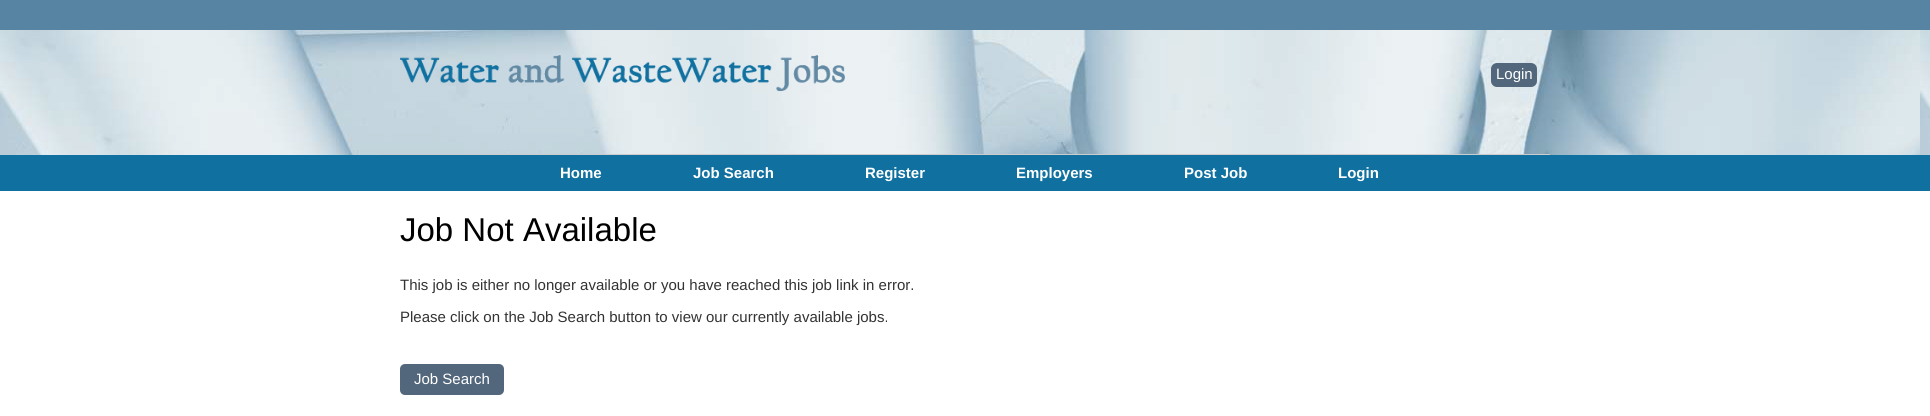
import math
import cairo


def use_color(cr, r, g, b):
  cr.set_source_rgb(r / 255, g / 255, b / 255)

def text(cr, x, y, s, family, size, color, bold=False, italic=False):
  cr.select_font_face(family, cairo.FONT_SLANT_ITALIC if italic else cairo.FONT_SLANT_NORMAL, cairo.FONT_WEIGHT_BOLD if bold else cairo.FONT_WEIGHT_NORMAL)
  cr.set_font_size(size)
  use_color(cr, *color)
  cr.move_to(x, y)
  cr.show_text(s)

def box(cr, x, y, w, h, *color):
  use_color(cr, *color)
  cr.rectangle(x, y, w, h)
  cr.fill()

def round_rect(cr, x, y, w, h, r):
  cr.new_sub_path()
  for i, (u, v) in enumerate([(x + w - r, y + h - r), (x + r, y + h - r), (x + r, y + r), (x + w - r, y + r)]):
    cr.arc(u, v, r, i * math.pi / 2, (i + 1) * math.pi / 2)
  cr.close_path()

def picture(cr, path, x, y, w, h):
  cr.save()
  cr.set_source_surface(cairo.ImageSurface.create_from_png(path), x, y)
  cr.rectangle(x, y, w, h)
  cr.fill()
  cr.restore()

def draw(cr):
  use_color(cr, 255, 255, 255)
  cr.paint()
  box(cr, 0, 0, 1930, 30, 87, 132, 162)
  picture(cr, "img_01.png", 0, 30, 1930, 125)
  box(cr, 380, 154, 1170, 1, 204, 204, 204)
  picture(cr, "img_02.png", 400, 55, 445, 36)
  use_color(cr, 82, 103, 124)
  round_rect(cr, 1491, 63, 46, 24, 6)
  cr.fill()
  box(cr, 0, 155, 1930, 36, 16, 112, 160)
  use_color(cr, 82, 103, 124)
  round_rect(cr, 400, 364, 104, 31, 5)
  cr.fill()
  text(cr, 1496, 79, "Login", "Liberation Sans", 15, (255, 255, 255))
  text(cr, 560, 178, "Home", "Liberation Sans", 15, (255, 255, 255), bold=True)
  text(cr, 693, 178, "Job Search", "Liberation Sans", 15, (255, 255, 255), bold=True)
  text(cr, 865, 178, "Register", "Liberation Sans", 15, (255, 255, 255), bold=True)
  text(cr, 1016, 178, "Employers", "Liberation Sans", 15, (255, 255, 255), bold=True)
  text(cr, 1184, 178, "Post Job", "Liberation Sans", 15, (255, 255, 255), bold=True)
  text(cr, 1338, 178, "Login", "Liberation Sans", 15, (255, 255, 255), bold=True)
  text(cr, 400, 241, "Job Not Available", "Liberation Sans", 33, (0, 0, 0))
  text(cr, 400, 290, "This job is either no longer available or you have reached this job link in error.", "Liberation Sans", 15, (51, 51, 51))
  text(cr, 400, 322, "Please click on the Job Search button to view our currently available jobs.", "Liberation Sans", 15, (51, 51, 51))
  text(cr, 414, 384, "Job Search", "Liberation Sans", 15, (255, 255, 255))


surface = cairo.ImageSurface(cairo.FORMAT_RGB24, 1930, 416)
cr = cairo.Context(surface)
options = cairo.FontOptions()
options.set_hint_metrics(cairo.HINT_METRICS_OFF)
options.set_hint_style(cairo.HINT_STYLE_NONE)
cr.set_font_options(options)
cr.set_miter_limit(4)
draw(cr)
surface.write_to_png("out.png")
